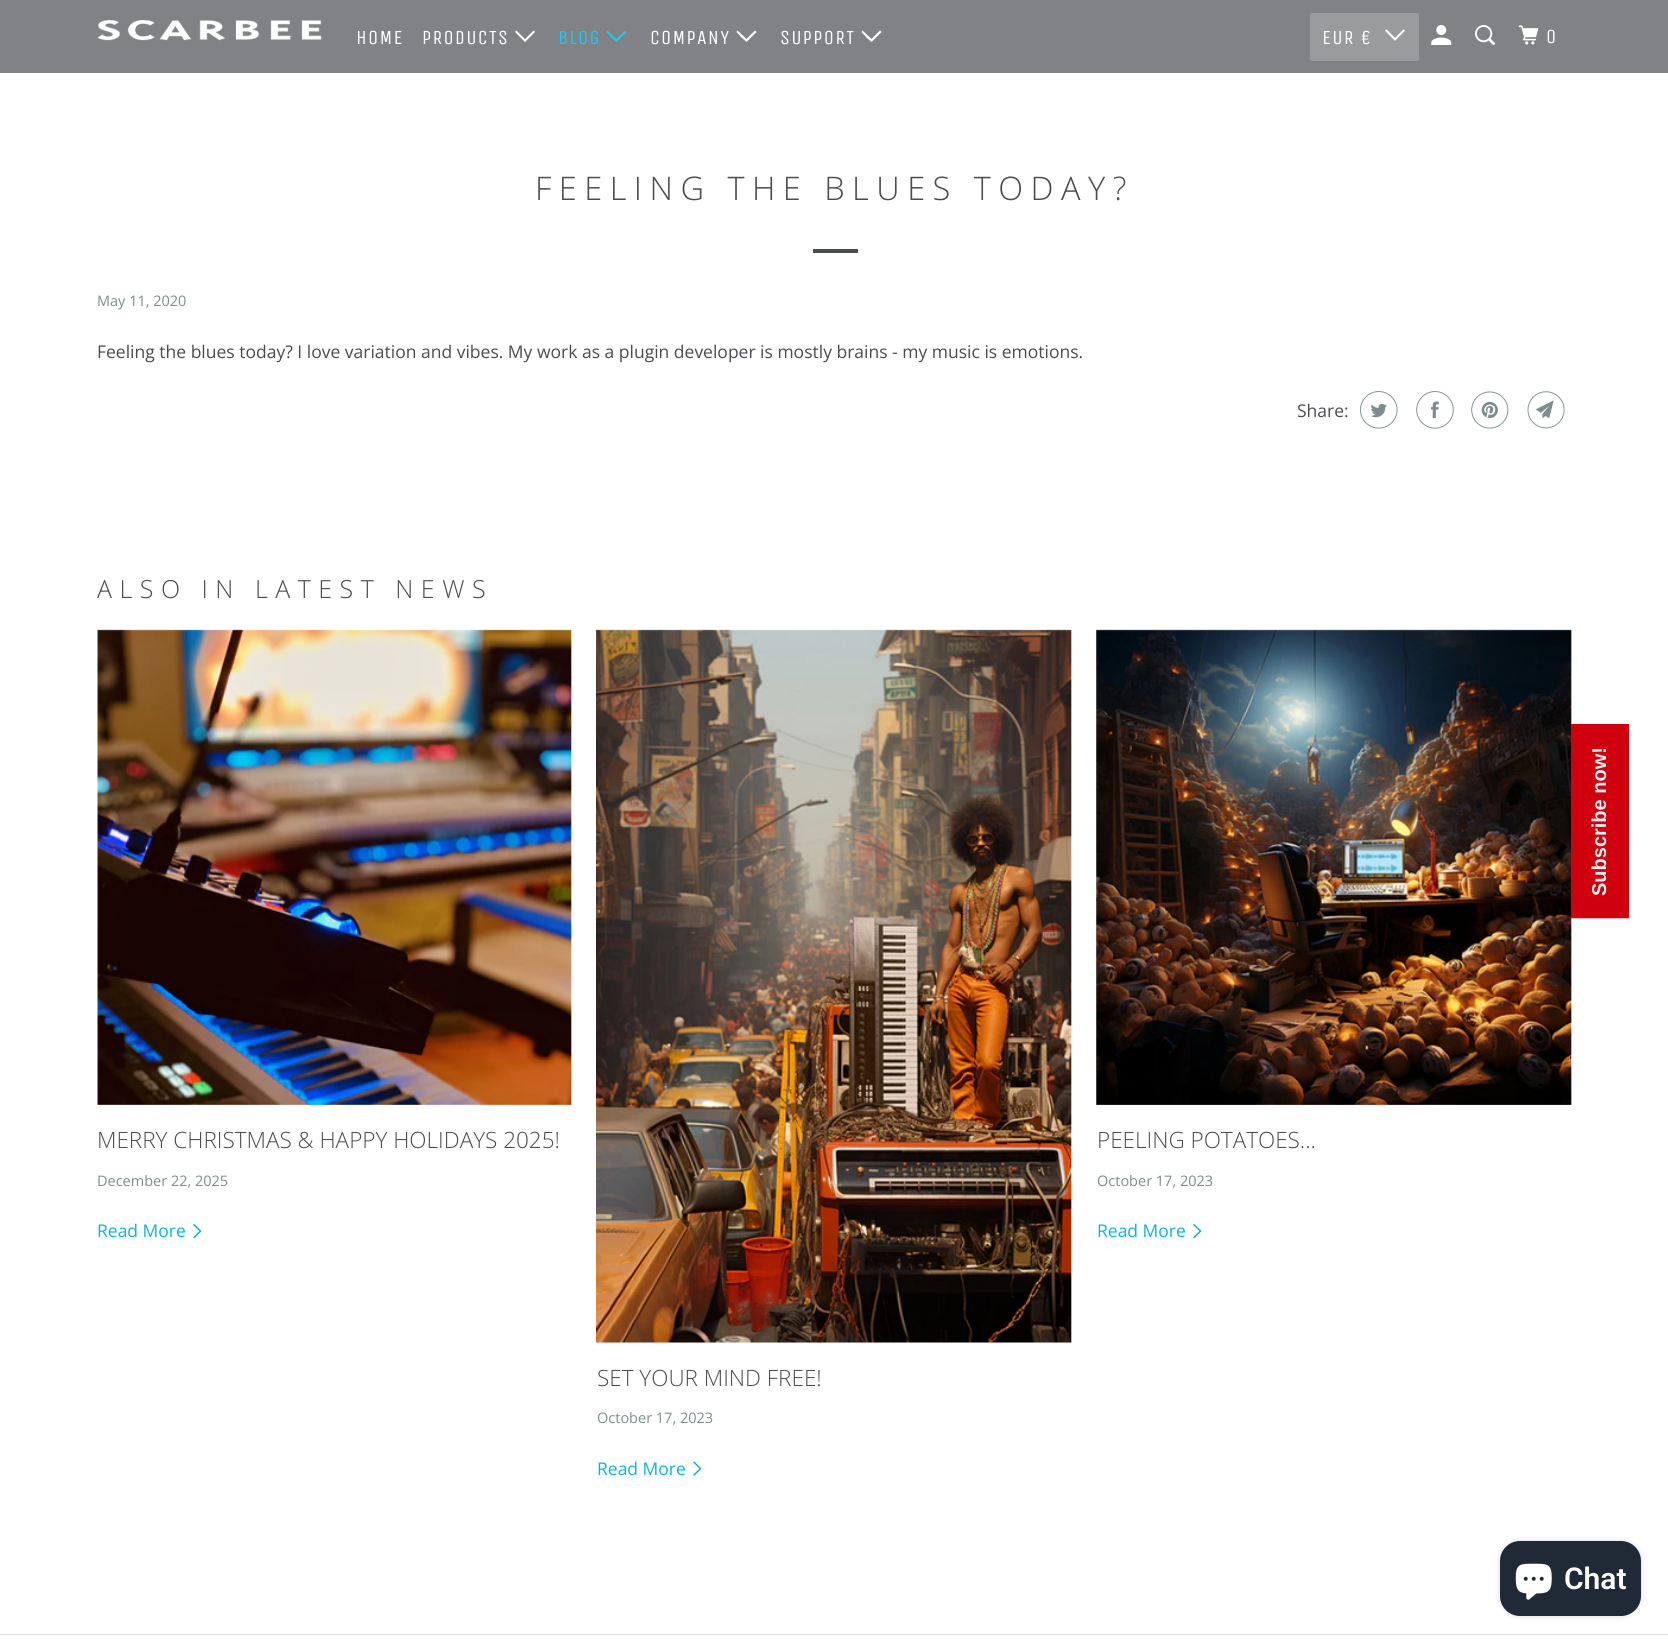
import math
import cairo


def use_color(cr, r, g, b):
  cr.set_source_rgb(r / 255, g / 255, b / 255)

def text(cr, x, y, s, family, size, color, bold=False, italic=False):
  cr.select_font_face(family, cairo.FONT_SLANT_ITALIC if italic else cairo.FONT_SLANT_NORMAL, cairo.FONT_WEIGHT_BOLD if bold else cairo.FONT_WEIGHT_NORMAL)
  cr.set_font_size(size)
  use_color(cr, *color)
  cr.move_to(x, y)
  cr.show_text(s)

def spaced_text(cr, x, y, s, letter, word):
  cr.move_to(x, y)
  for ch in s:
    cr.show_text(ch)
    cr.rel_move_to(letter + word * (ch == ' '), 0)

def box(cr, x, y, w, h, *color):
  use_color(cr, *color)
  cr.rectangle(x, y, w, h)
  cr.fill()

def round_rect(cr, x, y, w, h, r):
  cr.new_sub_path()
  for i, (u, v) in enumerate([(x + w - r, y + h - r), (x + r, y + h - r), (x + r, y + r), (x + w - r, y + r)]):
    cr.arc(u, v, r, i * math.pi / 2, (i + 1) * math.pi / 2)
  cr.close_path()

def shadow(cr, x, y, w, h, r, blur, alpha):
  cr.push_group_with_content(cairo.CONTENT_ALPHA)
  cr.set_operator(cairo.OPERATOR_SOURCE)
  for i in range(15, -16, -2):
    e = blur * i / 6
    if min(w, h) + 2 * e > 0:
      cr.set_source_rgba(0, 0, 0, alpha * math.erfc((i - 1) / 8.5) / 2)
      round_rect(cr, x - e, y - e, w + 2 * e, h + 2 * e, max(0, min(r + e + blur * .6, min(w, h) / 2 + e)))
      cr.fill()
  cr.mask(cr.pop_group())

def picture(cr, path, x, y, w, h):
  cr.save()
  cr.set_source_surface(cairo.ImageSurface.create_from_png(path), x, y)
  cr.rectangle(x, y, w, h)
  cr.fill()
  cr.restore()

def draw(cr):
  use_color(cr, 255, 255, 255)
  cr.paint()
  box(cr, 0, 0, 1668, 73, 128, 130, 133)
  picture(cr, "img_01.png", 97, 20, 225, 21)
  picture(cr, "img_02.png", 515, 30, 20, 12)
  use_color(cr, 15, 207, 255)
  cr.new_path()
  cr.move_to(611, 37)
  cr.line_to(606.5, 32)
  cr.line_to(607.5, 30.5)
  cr.line_to(616.5, 39)
  cr.line_to(625, 30.5)
  cr.line_to(626.5, 32)
  cr.line_to(616.5, 42)
  cr.close_path()
  cr.fill()
  use_color(cr, 255, 255, 255)
  cr.new_path()
  cr.move_to(741, 37)
  cr.line_to(736.5, 32)
  cr.line_to(737.5, 30.5)
  cr.line_to(746.5, 39)
  cr.line_to(755, 30.5)
  cr.line_to(756.5, 32)
  cr.line_to(746.5, 42)
  cr.close_path()
  cr.fill()
  cr.new_path()
  cr.move_to(866, 37)
  cr.line_to(861.5, 32)
  cr.line_to(862.5, 30.5)
  cr.line_to(871.5, 39)
  cr.line_to(880, 30.5)
  cr.line_to(881.5, 32)
  cr.line_to(871.5, 42)
  cr.close_path()
  cr.fill()
  use_color(cr, 153, 155, 157)
  round_rect(cr, 1310, 13, 109, 48, 2.5)
  cr.fill()
  picture(cr, "img_03.png", 1385, 29, 20, 12)
  picture(cr, "img_04.png", 1431, 25, 21, 20)
  picture(cr, "img_05.png", 1475, 25, 20, 20)
  picture(cr, "img_06.png", 1518, 25, 21, 20)
  box(cr, 813, 249, 45, 4, 73, 76, 80)
  picture(cr, "img_07.png", 1360, 391, 38, 38)
  picture(cr, "img_08.png", 1416, 391, 38, 38)
  picture(cr, "img_09.png", 1471, 391, 38, 38)
  picture(cr, "img_10.png", 1527, 391, 38, 38)
  picture(cr, "img_11.png", 97, 629, 476, 476)
  picture(cr, "img_12.png", 193, 1223, 9, 16)
  picture(cr, "img_13.png", 1096, 629, 476, 476)
  picture(cr, "img_12.png", 1193, 1223, 9, 16)
  picture(cr, "img_14.png", 596, 629, 476, 714)
  picture(cr, "img_15.png", 693, 1461, 9, 15)
  box(cr, 0, 1634, 1668, 1, 221, 221, 221)
  box(cr, 1571, 724, 58, 194, 209, 0, 14)
  cr.new_path()
  cr.move_to(1572.5, 917)
  cr.line_to(1572.5, 725.5)
  cr.line_to(1627.5, 725.5)
  cr.line_to(1627.5, 917)
  cr.close_path()
  cr.set_line_width(2.5)
  cr.stroke()
  use_color(cr, 0, 0, 0)
  shadow(cr, 1500, 1541, 141, 75, 20, 3, 0.15)
  use_color(cr, 32, 42, 54)
  round_rect(cr, 1500, 1541, 141, 75, 20)
  cr.fill()
  picture(cr, "img_16.png", 1515, 1563, 37, 37)
  cr.select_font_face("Unica One")
  cr.set_font_size(20)
  use_color(cr, 255, 255, 255)
  spaced_text(cr, 356, 44, "HOME", 1.25, 0)
  spaced_text(cr, 422, 44, "PRODUCTS", 1.25, 0)
  use_color(cr, 15, 207, 255)
  spaced_text(cr, 558, 44, "BLOG", 1.25, 0)
  use_color(cr, 255, 255, 255)
  spaced_text(cr, 650, 44, "COMPANY", 1.25, 0)
  spaced_text(cr, 780, 44, "SUPPORT", 1.25, 0)
  spaced_text(cr, 1322, 44, "EUR €", 1.25, 0)
  spaced_text(cr, 1546, 43, "0", 1.25, 0)
  cr.select_font_face("Open Sans Light")
  cr.set_font_size(32.5)
  use_color(cr, 73, 76, 80)
  spaced_text(cr, 535, 200, "FEELING THE BLUES TODAY?", 7.5, 0)
  text(cr, 97, 306, "May 11, 2020", "Open Sans", 14.5, (127, 140, 141))
  text(cr, 97, 358, "Feeling the blues today? I love variation and vibes. My work as a plugin developer is mostly brains - my music is emotions.", "Open Sans", 17.5, (73, 76, 80))
  text(cr, 1297, 417, "Share:", "Open Sans", 17.5, (73, 76, 80))
  cr.select_font_face("Open Sans Light")
  cr.set_font_size(25)
  spaced_text(cr, 97, 598, "ALSO IN LATEST NEWS", 7.5, 0)
  text(cr, 97, 1148, "MERRY CHRISTMAS & HAPPY HOLIDAYS 2025!", "Open Sans Light", 22.5, (73, 76, 80))
  text(cr, 97, 1186, "December 22, 2025", "Open Sans", 14.5, (127, 140, 141))
  text(cr, 97, 1237, "Read More", "Open Sans", 17.5, (12, 179, 220))
  text(cr, 1097, 1148, "PEELING POTATOES...", "Open Sans Light", 22.5, (73, 76, 80))
  text(cr, 1097, 1186, "October 17, 2023", "Open Sans", 14.5, (127, 140, 141))
  text(cr, 1097, 1237, "Read More", "Open Sans", 17.5, (12, 179, 220))
  text(cr, 597, 1386, "SET YOUR MIND FREE!", "Open Sans Light", 22.5, (73, 76, 80))
  text(cr, 597, 1423, "October 17, 2023", "Open Sans", 14.5, (127, 140, 141))
  text(cr, 597, 1475, "Read More", "Open Sans", 17.5, (12, 179, 220))
  cr.save()
  cr.translate(1606, 896)
  cr.rotate(-90 * math.pi / 180)
  text(cr, 0, 0, "Subscribe now!", "Liberation Sans", 20, (239, 239, 239), bold=True)
  cr.restore()
  text(cr, 1564, 1589, "Chat", "Roboto SemiBold", 30, (255, 255, 255))


surface = cairo.ImageSurface(cairo.FORMAT_RGB24, 1668, 1642)
cr = cairo.Context(surface)
options = cairo.FontOptions()
options.set_hint_metrics(cairo.HINT_METRICS_OFF)
options.set_hint_style(cairo.HINT_STYLE_NONE)
cr.set_font_options(options)
cr.set_miter_limit(4)
draw(cr)
surface.write_to_png("out.png")
